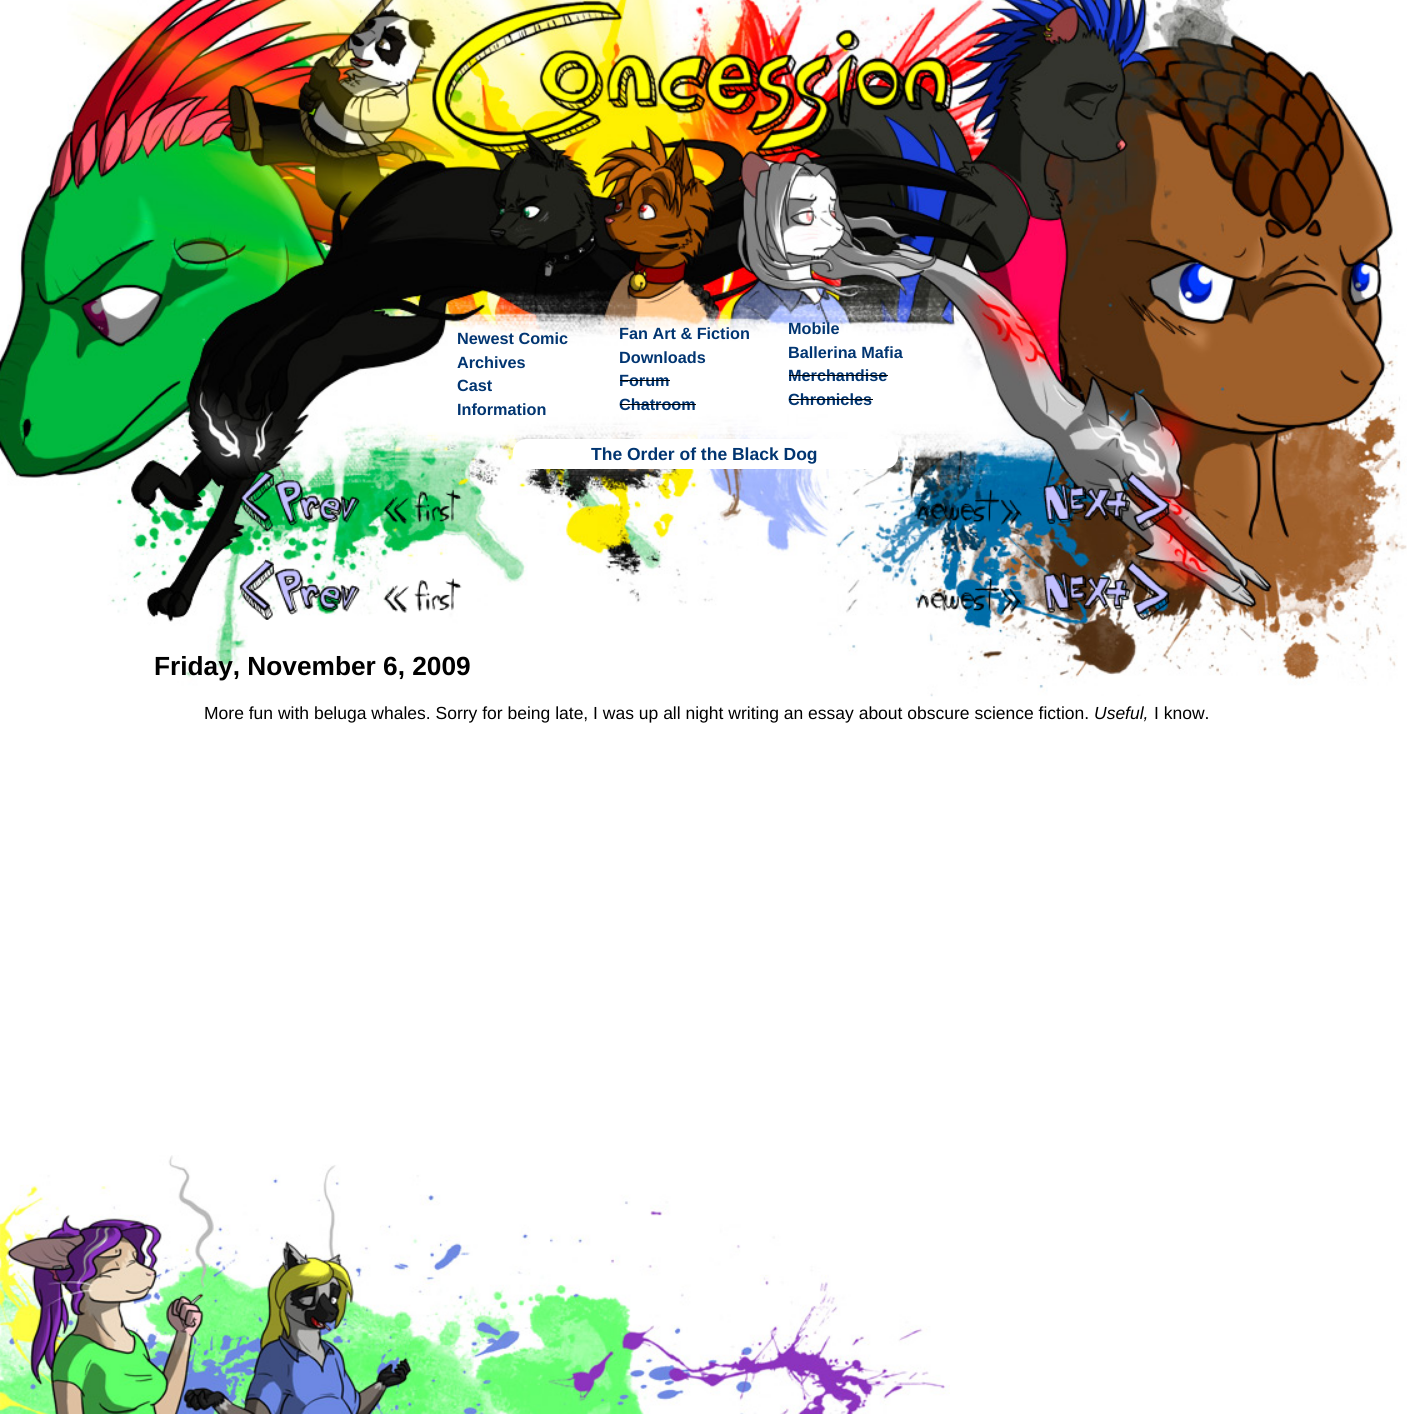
import math
import cairo


def use_color(cr, r, g, b):
  cr.set_source_rgb(r / 255, g / 255, b / 255)

def text(cr, x, y, s, family, size, color, bold=False, italic=False):
  cr.select_font_face(family, cairo.FONT_SLANT_ITALIC if italic else cairo.FONT_SLANT_NORMAL, cairo.FONT_WEIGHT_BOLD if bold else cairo.FONT_WEIGHT_NORMAL)
  cr.set_font_size(size)
  use_color(cr, *color)
  cr.move_to(x, y)
  cr.show_text(s)

def box(cr, x, y, w, h, *color):
  use_color(cr, *color)
  cr.rectangle(x, y, w, h)
  cr.fill()

def round_rect(cr, x, y, w, h, r):
  cr.new_sub_path()
  for i, (u, v) in enumerate([(x + w - r, y + h - r), (x + r, y + h - r), (x + r, y + r), (x + w - r, y + r)]):
    cr.arc(u, v, r, i * math.pi / 2, (i + 1) * math.pi / 2)
  cr.close_path()

def picture(cr, path, x, y, w, h):
  cr.save()
  cr.set_source_surface(cairo.ImageSurface.create_from_png(path), x, y)
  cr.rectangle(x, y, w, h)
  cr.fill()
  cr.restore()

def draw(cr):
  use_color(cr, 255, 255, 255)
  cr.paint()
  picture(cr, "img_01.png", 0, 0, 1407, 697)
  use_color(cr, 255, 255, 255)
  round_rect(cr, 513, 439, 385, 30, 13)
  cr.fill()
  picture(cr, "img_02.png", 240, 471, 121, 61)
  picture(cr, "img_03.png", 383, 489, 79, 35)
  picture(cr, "img_04.png", 917, 489, 106, 37)
  picture(cr, "img_05.png", 1043, 471, 128, 61)
  picture(cr, "img_06.png", 239, 558, 122, 62)
  picture(cr, "img_07.png", 383, 578, 79, 35)
  picture(cr, "img_08.png", 917, 577, 106, 37)
  picture(cr, "img_09.png", 1043, 560, 128, 60)
  picture(cr, "img_10.png", 0, 1155, 950, 259)
  text(cr, 457, 344, "Newest Comic", "Liberation Sans", 16.25, (1, 53, 113), bold=True)
  text(cr, 619, 339, "Fan Art & Fiction", "Liberation Sans", 16.25, (1, 53, 113), bold=True)
  text(cr, 788, 334, "Mobile", "Liberation Sans", 16.25, (1, 53, 113), bold=True)
  text(cr, 457, 368, "Archives", "Liberation Sans", 16.25, (1, 53, 113), bold=True)
  text(cr, 619, 363, "Downloads", "Liberation Sans", 16.25, (1, 53, 113), bold=True)
  text(cr, 788, 358, "Ballerina Mafia", "Liberation Sans", 16.25, (1, 53, 113), bold=True)
  text(cr, 457, 391, "Cast", "Liberation Sans", 16.25, (1, 53, 113), bold=True)
  text(cr, 619, 386, "Forum", "Liberation Sans", 16.25, (1, 53, 113), bold=True)
  box(cr, 620, 380, 50, 1, 0, 0, 0)
  text(cr, 788, 381, "Merchandise", "Liberation Sans", 16.25, (1, 53, 113), bold=True)
  box(cr, 789, 375, 99, 1, 0, 0, 0)
  text(cr, 457, 415, "Information", "Liberation Sans", 16.25, (1, 53, 113), bold=True)
  text(cr, 619, 410, "Chatroom", "Liberation Sans", 16.25, (1, 53, 113), bold=True)
  box(cr, 620, 404, 76, 1, 0, 0, 0)
  text(cr, 788, 405, "Chronicles", "Liberation Sans", 16.25, (1, 53, 113), bold=True)
  box(cr, 789, 399, 84, 1, 0, 0, 0)
  text(cr, 591, 460, "The Order of the Black Dog", "Liberation Sans", 17.5, (1, 53, 113), bold=True)
  text(cr, 154, 675, "Friday, November 6, 2009", "Liberation Sans", 26.25, (0, 0, 0), bold=True)
  text(cr, 204, 719, "More fun with beluga whales. Sorry for being late, I was up all night writing an essay about obscure science fiction.", "Liberation Sans", 17.5, (0, 0, 0))
  text(cr, 1094, 719, "Useful,", "Liberation Sans", 17.5, (0, 0, 0), italic=True)
  text(cr, 1154, 719, "I know.", "Liberation Sans", 17.5, (0, 0, 0))


surface = cairo.ImageSurface(cairo.FORMAT_RGB24, 1408, 1414)
cr = cairo.Context(surface)
options = cairo.FontOptions()
options.set_hint_metrics(cairo.HINT_METRICS_OFF)
options.set_hint_style(cairo.HINT_STYLE_NONE)
cr.set_font_options(options)
cr.set_miter_limit(4)
draw(cr)
surface.write_to_png("out.png")
